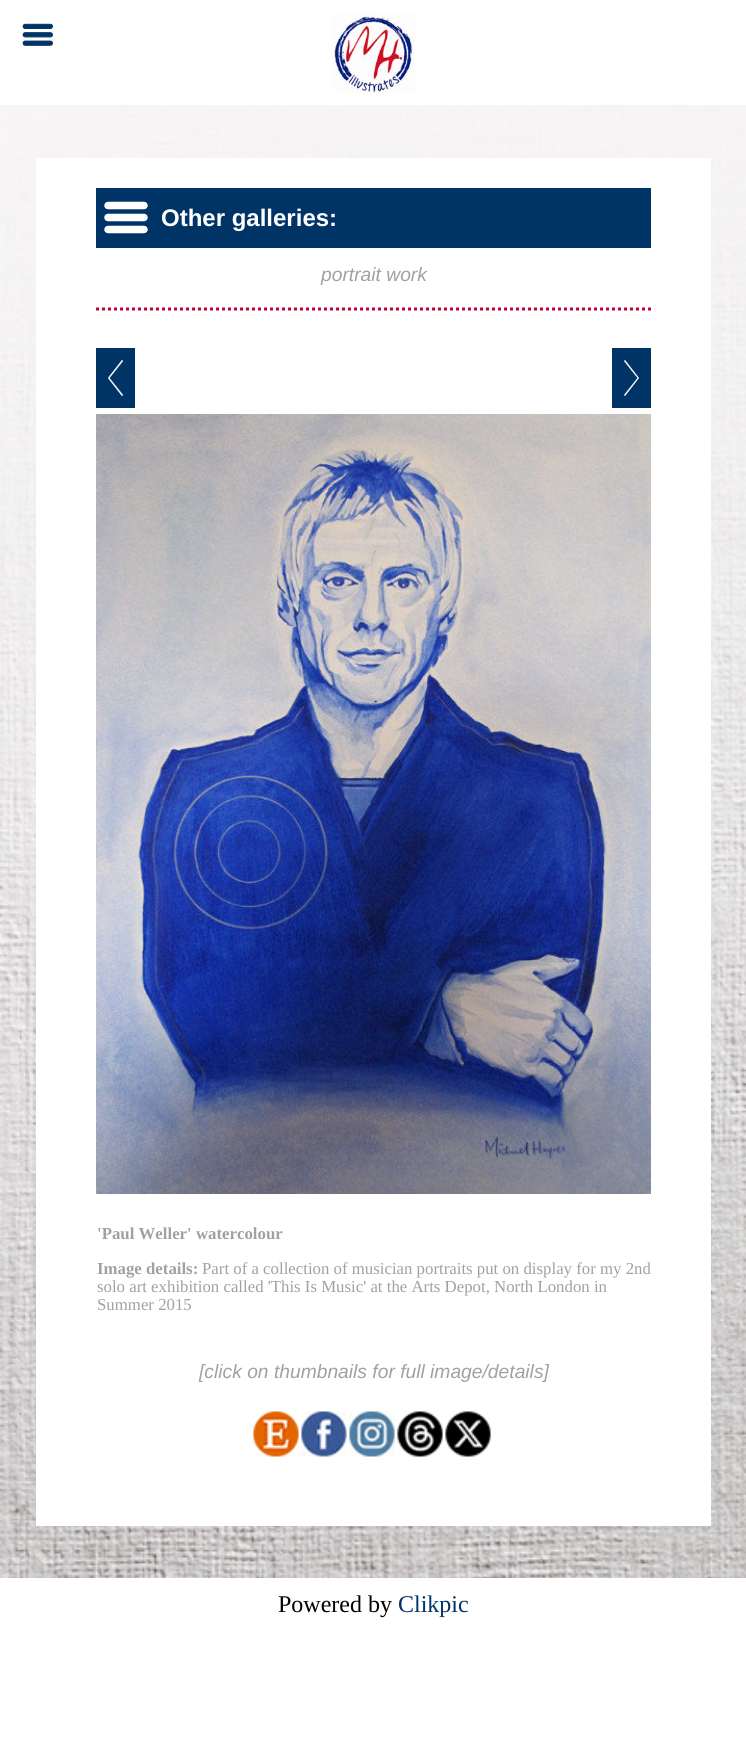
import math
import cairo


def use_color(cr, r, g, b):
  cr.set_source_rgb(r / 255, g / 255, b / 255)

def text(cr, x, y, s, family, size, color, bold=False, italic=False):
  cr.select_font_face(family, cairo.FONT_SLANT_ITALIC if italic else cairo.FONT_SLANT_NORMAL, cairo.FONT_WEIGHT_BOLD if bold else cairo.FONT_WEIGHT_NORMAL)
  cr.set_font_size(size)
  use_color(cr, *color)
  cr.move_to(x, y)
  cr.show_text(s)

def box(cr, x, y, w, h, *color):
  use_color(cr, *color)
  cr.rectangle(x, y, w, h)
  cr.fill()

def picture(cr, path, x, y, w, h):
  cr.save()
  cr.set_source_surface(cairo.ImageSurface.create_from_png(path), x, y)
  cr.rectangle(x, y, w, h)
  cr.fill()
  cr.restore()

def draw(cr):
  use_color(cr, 255, 255, 255)
  cr.paint()
  picture(cr, "img_01.png", 0, 105, 746, 1473)
  picture(cr, "img_02.png", 22, 23, 31, 23)
  picture(cr, "img_03.png", 331, 12, 84, 81)
  box(cr, 36, 158, 675, 1368, 255, 255, 255)
  box(cr, 96, 188, 555, 60, 0, 51, 102)
  picture(cr, "img_04.png", 104, 201, 44, 33)
  cr.new_path()
  cr.move_to(96, 309)
  cr.line_to(651, 309)
  use_color(cr, 204, 0, 51)
  cr.set_line_width(3)
  cr.set_dash([3, 3])
  cr.stroke()
  box(cr, 96, 348, 39, 60, 0, 51, 102)
  use_color(cr, 255, 255, 255)
  cr.new_path()
  cr.move_to(122, 396)
  cr.line_to(108, 378)
  cr.line_to(122, 360)
  cr.line_to(123, 361)
  cr.line_to(109.5, 378)
  cr.line_to(123, 395)
  cr.close_path()
  cr.fill_preserve()
  cr.set_line_width(0.2)
  cr.set_dash([])
  cr.stroke()
  box(cr, 612, 348, 39, 60, 0, 51, 102)
  use_color(cr, 255, 255, 255)
  cr.new_path()
  cr.move_to(625, 396)
  cr.line_to(624, 395)
  cr.line_to(637.5, 378)
  cr.line_to(624, 361)
  cr.line_to(625, 360)
  cr.line_to(639, 378)
  cr.close_path()
  cr.fill_preserve()
  cr.set_line_width(0.1)
  cr.stroke()
  picture(cr, "img_05.png", 96, 414, 555, 780)
  picture(cr, "img_06.png", 253, 1411, 46, 46)
  picture(cr, "img_07.png", 301, 1411, 46, 46)
  picture(cr, "img_08.png", 349, 1411, 46, 46)
  picture(cr, "img_09.png", 397, 1411, 46, 46)
  picture(cr, "img_10.png", 445, 1411, 46, 46)
  text(cr, 161, 226, "Other galleries:", "Liberation Sans", 24, (255, 255, 255), bold=True)
  text(cr, 321, 281, "portrait work", "Liberation Sans", 19.25, (161, 161, 161), italic=True)
  text(cr, 97, 1239, "'Paul Weller' watercolour", "Liberation Serif", 16.8, (161, 161, 161), bold=True)
  text(cr, 97, 1274, "Image details:", "Liberation Serif", 16.8, (161, 161, 161), bold=True)
  text(cr, 202, 1274, "Part of a collection of musician portraits put on display for my 2nd", "Liberation Serif", 16.8, (161, 161, 161))
  text(cr, 97, 1292, "solo art exhibition called 'This Is Music' at the Arts Depot, North London in", "Liberation Serif", 16.8, (161, 161, 161))
  text(cr, 97, 1310, "Summer 2015", "Liberation Serif", 16.8, (161, 161, 161))
  text(cr, 199, 1378, "[click on thumbnails for full image/details]", "Liberation Sans", 19.25, (161, 161, 161), italic=True)
  text(cr, 278, 1612, "Powered by", "Liberation Serif", 24, (0, 0, 0))
  text(cr, 398, 1612, "Clikpic", "Liberation Serif", 24, (0, 51, 102))


surface = cairo.ImageSurface(cairo.FORMAT_RGB24, 746, 1756)
cr = cairo.Context(surface)
options = cairo.FontOptions()
options.set_hint_metrics(cairo.HINT_METRICS_OFF)
options.set_hint_style(cairo.HINT_STYLE_NONE)
cr.set_font_options(options)
cr.set_miter_limit(4)
draw(cr)
surface.write_to_png("out.png")
